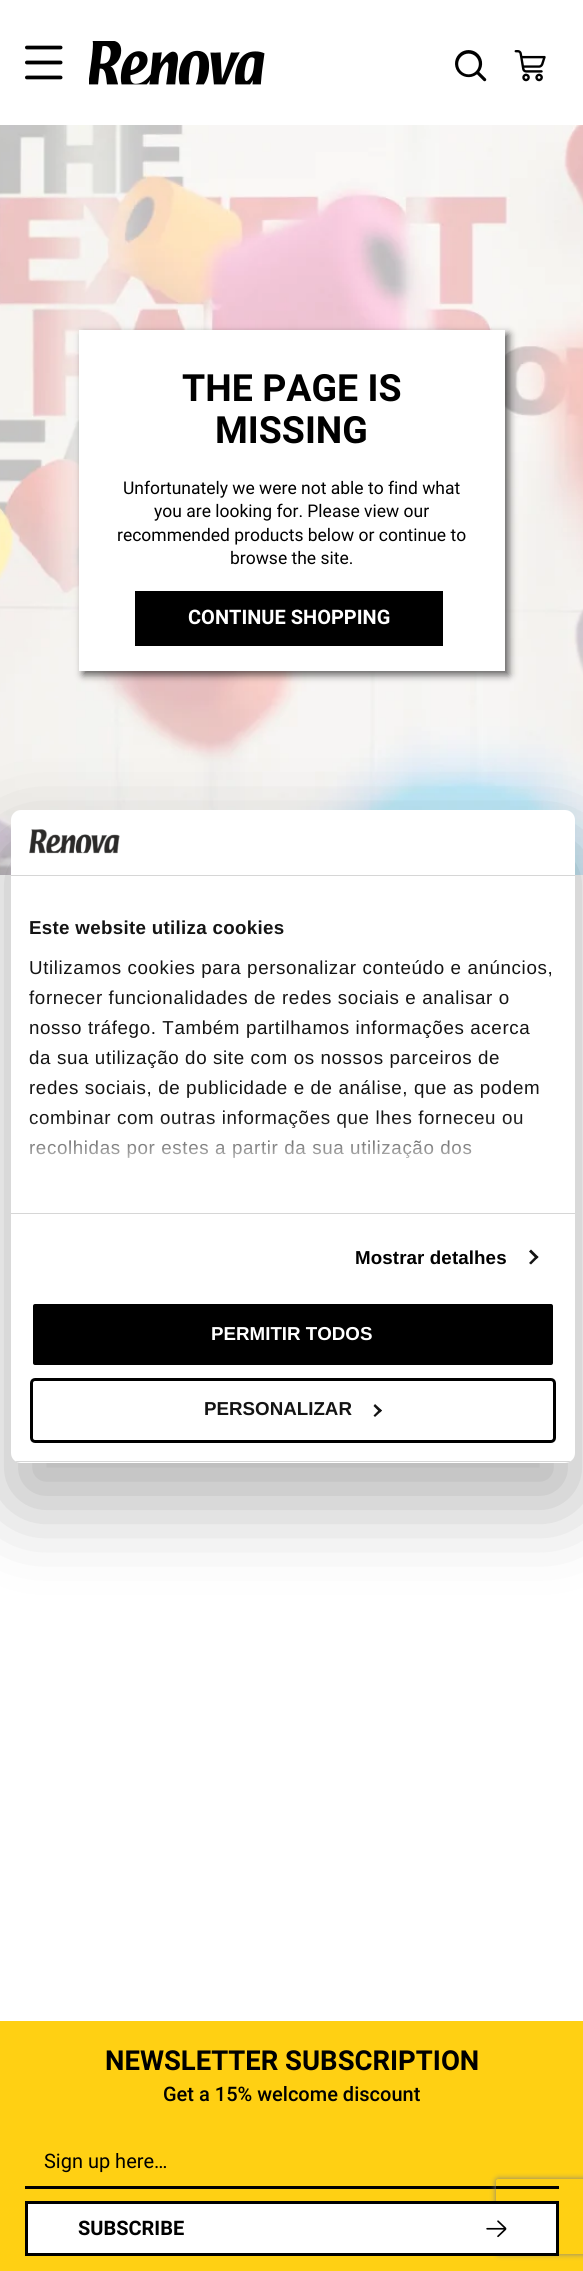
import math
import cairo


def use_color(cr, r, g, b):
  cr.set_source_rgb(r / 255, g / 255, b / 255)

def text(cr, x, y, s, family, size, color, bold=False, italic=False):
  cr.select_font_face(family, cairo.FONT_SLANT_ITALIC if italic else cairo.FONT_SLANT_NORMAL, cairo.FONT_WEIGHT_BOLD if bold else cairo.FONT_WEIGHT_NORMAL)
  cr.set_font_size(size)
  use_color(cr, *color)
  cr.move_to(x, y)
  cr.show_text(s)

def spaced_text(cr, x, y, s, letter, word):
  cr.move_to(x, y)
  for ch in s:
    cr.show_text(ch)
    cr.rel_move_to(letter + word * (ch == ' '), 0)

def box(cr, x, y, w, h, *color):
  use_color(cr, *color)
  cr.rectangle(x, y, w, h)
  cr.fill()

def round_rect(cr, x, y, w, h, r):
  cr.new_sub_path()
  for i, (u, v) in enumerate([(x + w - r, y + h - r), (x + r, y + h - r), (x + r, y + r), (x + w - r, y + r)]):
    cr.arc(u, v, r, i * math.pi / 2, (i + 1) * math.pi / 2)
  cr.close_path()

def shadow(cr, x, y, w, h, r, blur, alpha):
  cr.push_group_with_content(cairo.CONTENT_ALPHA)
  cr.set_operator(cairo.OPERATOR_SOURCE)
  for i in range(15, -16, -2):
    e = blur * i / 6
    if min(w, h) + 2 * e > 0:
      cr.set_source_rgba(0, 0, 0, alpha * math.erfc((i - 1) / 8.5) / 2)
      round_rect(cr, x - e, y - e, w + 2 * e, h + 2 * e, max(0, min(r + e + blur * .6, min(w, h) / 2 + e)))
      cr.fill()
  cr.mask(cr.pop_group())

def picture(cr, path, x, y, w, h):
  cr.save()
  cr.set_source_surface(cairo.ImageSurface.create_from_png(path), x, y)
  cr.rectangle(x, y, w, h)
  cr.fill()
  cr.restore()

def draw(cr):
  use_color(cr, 255, 255, 255)
  cr.paint()
  picture(cr, "img_01.png", 89, 41, 176, 44)
  picture(cr, "img_02.png", 25, 45, 38, 35)
  picture(cr, "img_03.png", 455, 50, 32, 32)
  picture(cr, "img_04.png", 514, 50, 32, 32)
  picture(cr, "img_05.png", 0, 125, 583, 750)
  use_color(cr, 0, 0, 0)
  shadow(cr, 83, 334, 426, 341, 0, 4, 0.6)
  box(cr, 79, 330, 426, 341, 255, 255, 255)
  box(cr, 135, 591, 308, 55, 0, 0, 0)
  box(cr, 0, 2021, 583, 250, 255, 208, 19)
  box(cr, 25, 2186, 534, 3, 0, 0, 0)
  cr.save()
  cr.set_fill_rule(cairo.FILL_RULE_EVEN_ODD)
  cr.new_path()
  cr.move_to(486, 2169)
  cr.line_to(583, 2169)
  cr.line_to(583, 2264)
  cr.line_to(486, 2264)
  cr.close_path()
  cr.move_to(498.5, 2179)
  cr.line_to(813.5, 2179)
  cr.curve_to(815, 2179, 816, 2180, 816, 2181.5)
  cr.line_to(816, 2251.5)
  cr.curve_to(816, 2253, 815, 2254, 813.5, 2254)
  cr.line_to(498.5, 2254)
  cr.curve_to(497, 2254, 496, 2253, 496, 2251.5)
  cr.line_to(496, 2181.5)
  cr.curve_to(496, 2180, 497, 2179, 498.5, 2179)
  cr.close_path()
  cr.clip()
  use_color(cr, 128, 128, 128)
  shadow(cr, 496, 2179, 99, 75, 2.5, 3, 1)
  cr.restore()
  use_color(cr, 255, 255, 255)
  cr.rectangle(26.5, 2202.5, 531, 52)
  cr.fill_preserve()
  use_color(cr, 0, 0, 0)
  cr.set_line_width(3)
  cr.stroke()
  picture(cr, "img_06.png", 486, 2220, 21, 18)
  use_color(cr, 0, 0, 0)
  shadow(cr, 11, 850, 564, 653, 10, 42.5, 0.3)
  use_color(cr, 255, 255, 255)
  round_rect(cr, 11, 810, 564, 653, 10)
  cr.fill()
  box(cr, 11, 875, 564, 1, 214, 214, 214)
  picture(cr, "img_07.png", 29, 829, 91, 25)
  box(cr, 11, 1213, 564, 1, 214, 214, 214)
  use_color(cr, 20, 20, 20)
  cr.new_path()
  cr.move_to(531, 1249.5)
  cr.line_to(538.5, 1257)
  cr.line_to(536.5, 1259)
  cr.line_to(529, 1251.5)
  cr.close_path()
  cr.fill()
  cr.new_path()
  cr.move_to(536.5, 1255.5)
  cr.line_to(538.5, 1257)
  cr.line_to(531, 1264.5)
  cr.line_to(529, 1263)
  cr.close_path()
  cr.fill()
  cr.save()
  round_rect(cr, 11, 810, 564, 653, 10)
  cr.clip()
  box(cr, 11, 1461, 564, 1, 214, 214, 214)
  cr.restore()
  use_color(cr, 0, 0, 0)
  round_rect(cr, 31.5, 1302.5, 523, 64, 3.5)
  cr.fill_preserve()
  use_color(cr, 255, 255, 255)
  cr.stroke()
  round_rect(cr, 31.5, 1379.5, 523, 62, 3.5)
  use_color(cr, 0, 0, 0)
  cr.stroke()
  use_color(cr, 20, 20, 20)
  cr.new_path()
  cr.move_to(375, 1404)
  cr.line_to(382, 1410.5)
  cr.line_to(380, 1412.5)
  cr.line_to(373.5, 1406)
  cr.close_path()
  cr.fill()
  cr.new_path()
  cr.move_to(380, 1409)
  cr.line_to(382, 1410.5)
  cr.line_to(375, 1417)
  cr.line_to(373.5, 1415.5)
  cr.close_path()
  cr.fill()
  text(cr, 182, 401, "THE PAGE IS", "Roboto", 37.5, (0, 0, 0), bold=True)
  text(cr, 215, 443, "MISSING", "Roboto", 37.5, (0, 0, 0), bold=True)
  text(cr, 123, 494, "Unfortunately we were not able to find what", "Roboto", 17.5, (0, 0, 0))
  text(cr, 154, 517, "you are looking for. Please view our", "Roboto", 17.5, (0, 0, 0))
  text(cr, 117, 541, "recommended products below or continue to", "Roboto", 17.5, (0, 0, 0))
  text(cr, 230, 564, "browse the site.", "Roboto", 17.5, (0, 0, 0))
  text(cr, 188, 624, "CONTINUE SHOPPING", "Roboto", 20, (255, 255, 255), bold=True)
  text(cr, 105, 2070, "NEWSLETTER SUBSCRIPTION", "Roboto", 27.5, (0, 0, 0), bold=True)
  text(cr, 163, 2101, "Get a 15% welcome discount", "Roboto Medium", 20, (0, 0, 0))
  text(cr, 44, 2168, "Sign up here…", "Roboto", 20, (0, 0, 0))
  text(cr, 78, 2235, "SUBSCRIBE", "Roboto", 20, (0, 0, 0), bold=True)
  cr.select_font_face("Liberation Sans", cairo.FONT_SLANT_NORMAL, cairo.FONT_WEIGHT_BOLD)
  cr.set_font_size(18.75)
  use_color(cr, 20, 20, 20)
  spaced_text(cr, 29, 934, "Este website utiliza cookies", 0.3, 0)
  cr.select_font_face("Liberation Sans")
  spaced_text(cr, 29, 974, "Utilizamos cookies para personalizar conteúdo e anúncios,", 0.62, 0)
  spaced_text(cr, 29, 1004, "fornecer funcionalidades de redes sociais e analisar o", 0.62, 0)
  spaced_text(cr, 29, 1034, "nosso tráfego. Também partilhamos informações acerca", 0.62, 0)
  spaced_text(cr, 29, 1064, "da sua utilização do site com os nossos parceiros de", 0.62, 0)
  spaced_text(cr, 29, 1094, "redes sociais, de publicidade e de análise, que as podem", 0.62, 0)
  spaced_text(cr, 29, 1124, "combinar com outras informações que lhes forneceu ou", 0.62, 0)
  spaced_text(cr, 29, 1154, "recolhidas por estes a partir da sua utilização dos", 0.62, 0)
  gradient = cairo.LinearGradient(284, 1212, 284, 1118)
  gradient.add_color_stop_rgba(0, 1, 1, 1, 1)
  gradient.add_color_stop_rgba(0.5, 1, 1, 1, 0.8)
  gradient.add_color_stop_rgba(1, 1, 1, 1, 0)
  cr.set_source(gradient)
  cr.rectangle(29, 1119, 493, 39)
  cr.fill()
  cr.select_font_face("Liberation Sans", cairo.FONT_SLANT_NORMAL, cairo.FONT_WEIGHT_BOLD)
  use_color(cr, 0, 0, 0)
  spaced_text(cr, 355, 1264, "Mostrar detalhes", 0.1, 0)
  text(cr, 211, 1340, "PERMITIR TODOS", "Liberation Sans", 18.75, (255, 255, 255), bold=True)
  text(cr, 204, 1415, "PERSONALIZAR", "Liberation Sans", 18.75, (20, 20, 20), bold=True)


surface = cairo.ImageSurface(cairo.FORMAT_RGB24, 583, 2271)
cr = cairo.Context(surface)
options = cairo.FontOptions()
options.set_hint_metrics(cairo.HINT_METRICS_OFF)
options.set_hint_style(cairo.HINT_STYLE_NONE)
cr.set_font_options(options)
cr.set_miter_limit(4)
draw(cr)
surface.write_to_png("out.png")
